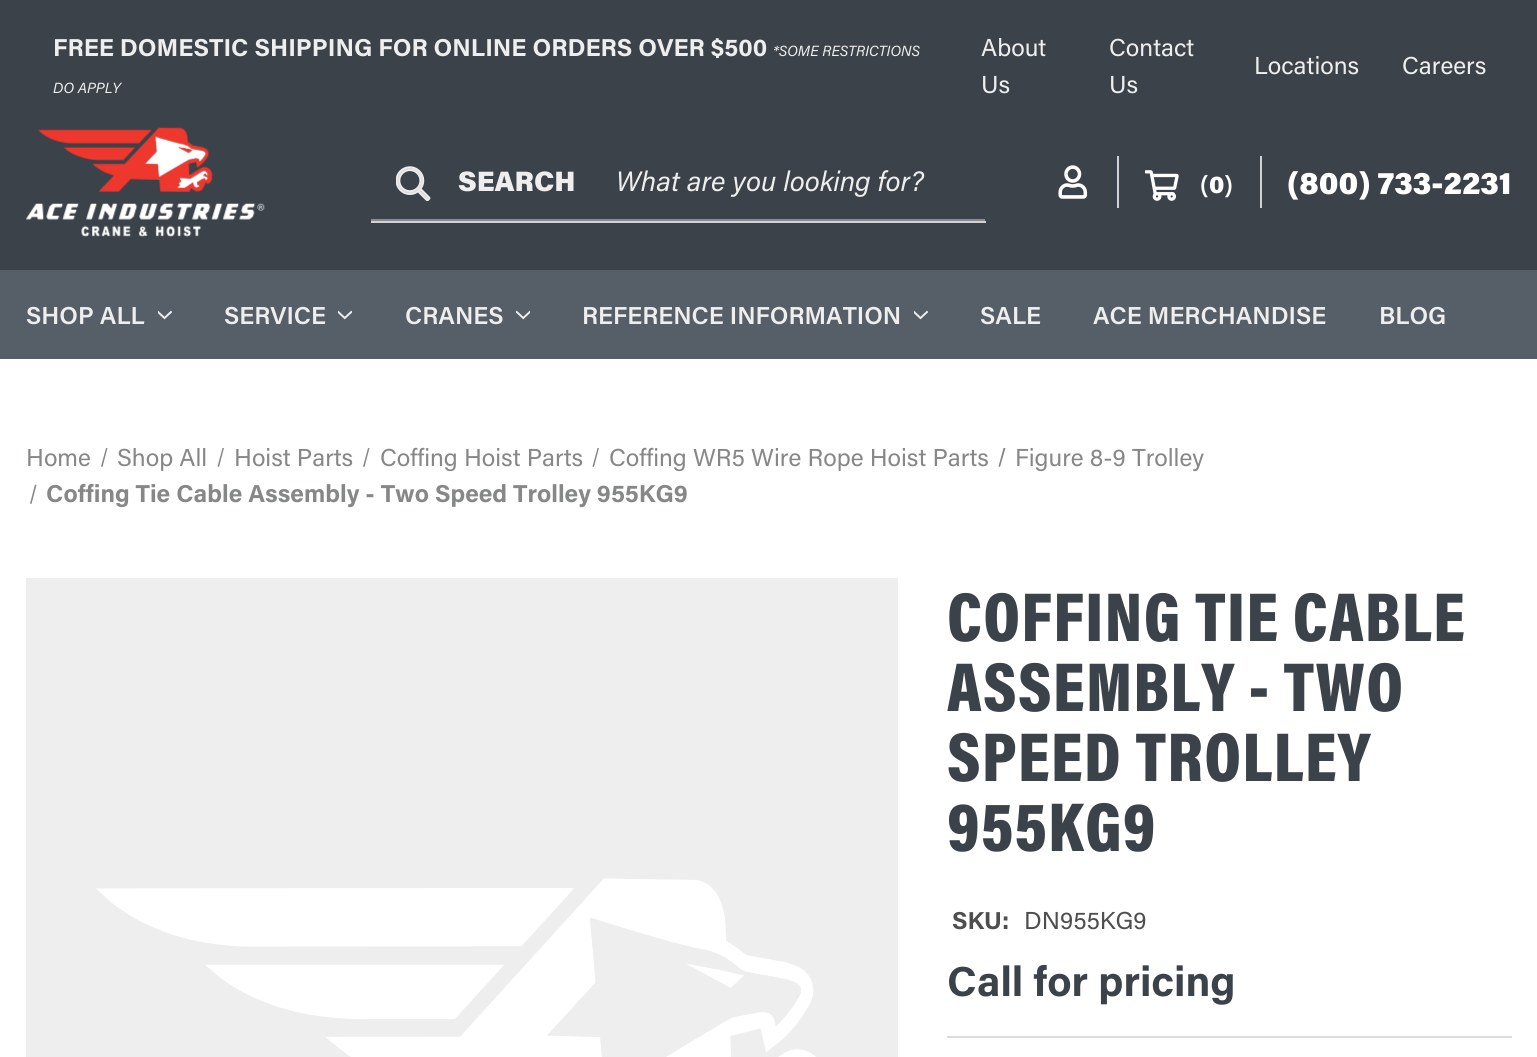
import math
import cairo


def use_color(cr, r, g, b):
  cr.set_source_rgb(r / 255, g / 255, b / 255)

def text(cr, x, y, s, family, size, color, bold=False, italic=False):
  cr.select_font_face(family, cairo.FONT_SLANT_ITALIC if italic else cairo.FONT_SLANT_NORMAL, cairo.FONT_WEIGHT_BOLD if bold else cairo.FONT_WEIGHT_NORMAL)
  cr.set_font_size(size)
  use_color(cr, *color)
  cr.move_to(x, y)
  cr.show_text(s)

def spaced_text(cr, x, y, s, letter, word):
  cr.move_to(x, y)
  for ch in s:
    cr.show_text(ch)
    cr.rel_move_to(letter + word * (ch == ' '), 0)

def box(cr, x, y, w, h, *color):
  use_color(cr, *color)
  cr.rectangle(x, y, w, h)
  cr.fill()

def picture(cr, path, x, y, w, h):
  cr.save()
  cr.set_source_surface(cairo.ImageSurface.create_from_png(path), x, y)
  cr.rectangle(x, y, w, h)
  cr.fill()
  cr.restore()

def draw(cr):
  use_color(cr, 255, 255, 255)
  cr.paint()
  box(cr, 0, 0, 1537, 270, 60, 66, 73)
  picture(cr, "img_01.png", 26, 127, 239, 110)
  picture(cr, "img_02.png", 396, 166, 35, 35)
  box(cr, 371, 219, 614, 2, 137, 142, 149)
  box(cr, 371, 221, 615, 2, 210, 210, 210)
  picture(cr, "img_03.png", 1058, 165, 30, 34)
  box(cr, 1117, 156, 2, 52, 210, 210, 210)
  picture(cr, "img_04.png", 1145, 170, 34, 31)
  box(cr, 1260, 156, 2, 52, 210, 210, 210)
  box(cr, 0, 270, 1537, 89, 86, 94, 104)
  picture(cr, "img_05.png", 158, 310, 14, 10)
  picture(cr, "img_06.png", 338, 310, 14, 10)
  picture(cr, "img_07.png", 516, 310, 14, 10)
  picture(cr, "img_05.png", 914, 310, 14, 10)
  use_color(cr, 134, 135, 135)
  cr.new_path()
  cr.move_to(106, 448)
  cr.line_to(107.5, 448)
  cr.line_to(102.5, 467)
  cr.line_to(101, 466.5)
  cr.close_path()
  cr.fill()
  cr.new_path()
  cr.move_to(222.5, 448)
  cr.line_to(224, 448)
  cr.line_to(219, 467)
  cr.line_to(217.5, 466.5)
  cr.close_path()
  cr.fill()
  cr.new_path()
  cr.move_to(368, 448)
  cr.line_to(369.5, 448)
  cr.line_to(364.5, 467)
  cr.line_to(363, 466.5)
  cr.close_path()
  cr.fill()
  cr.new_path()
  cr.move_to(597.5, 448)
  cr.line_to(599, 448)
  cr.line_to(594, 467)
  cr.line_to(592.5, 466.5)
  cr.close_path()
  cr.fill()
  cr.new_path()
  cr.move_to(1003.5, 448)
  cr.line_to(1005.5, 448)
  cr.line_to(1000, 467)
  cr.line_to(998.5, 466.5)
  cr.close_path()
  cr.fill()
  cr.new_path()
  cr.move_to(35, 484.5)
  cr.line_to(36.5, 485)
  cr.line_to(31.5, 504)
  cr.line_to(30, 503.5)
  cr.close_path()
  cr.fill()
  picture(cr, "img_08.png", 26, 578, 872, 479)
  box(cr, 947, 1036, 565, 2, 221, 221, 221)
  text(cr, 53, 56, "FREE DOMESTIC SHIPPING FOR ONLINE ORDERS OVER $500", "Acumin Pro", 24.5, (238, 238, 238), bold=True)
  text(cr, 773, 56, "*SOME RESTRICTIONS", "Acumin Pro", 14.75, (238, 238, 238), italic=True)
  text(cr, 53, 93, "DO APPLY", "Acumin Pro", 14.75, (238, 238, 238), italic=True)
  text(cr, 981, 56, "About", "Acumin Pro", 24.5, (238, 238, 238))
  text(cr, 981, 93, "Us", "Acumin Pro", 24.5, (238, 238, 238))
  text(cr, 1109, 56, "Contact", "Acumin Pro", 24.5, (238, 238, 238))
  text(cr, 1109, 93, "Us", "Acumin Pro", 24.5, (238, 238, 238))
  text(cr, 1254, 74, "Locations", "Acumin Pro", 24.5, (238, 238, 238))
  text(cr, 1402, 74, "Careers", "Acumin Pro", 24.5, (238, 238, 238))
  text(cr, 458, 191, "SEARCH", "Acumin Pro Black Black", 28, (238, 238, 238))
  text(cr, 616, 191, "What are you looking for?", "Acumin Pro", 28, (238, 238, 238), italic=True)
  text(cr, 1200, 193, "(", "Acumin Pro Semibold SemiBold", 24.5, (255, 255, 255))
  text(cr, 1209, 193, "0", "Acumin Pro Black Black", 24.5, (255, 255, 255))
  text(cr, 1224, 193, ")", "Acumin Pro Semibold SemiBold", 24.5, (255, 255, 255))
  text(cr, 1287, 194, "(800) 733-2231", "Acumin Pro Black Black", 31.5, (255, 255, 255))
  text(cr, 26, 324, "SHOP ALL", "Acumin Pro Semibold SemiBold", 24.5, (238, 238, 238))
  text(cr, 224, 324, "SERVICE", "Acumin Pro Semibold SemiBold", 24.5, (238, 238, 238))
  text(cr, 405, 324, "CRANES", "Acumin Pro Semibold SemiBold", 24.5, (238, 238, 238))
  text(cr, 582, 324, "REFERENCE INFORMATION", "Acumin Pro Semibold SemiBold", 24.5, (238, 238, 238))
  text(cr, 980, 324, "SALE", "Acumin Pro Semibold SemiBold", 24.5, (238, 238, 238))
  text(cr, 1093, 324, "ACE MERCHANDISE", "Acumin Pro Semibold SemiBold", 24.5, (238, 238, 238))
  text(cr, 1379, 324, "BLOG", "Acumin Pro Semibold SemiBold", 24.5, (238, 238, 238))
  text(cr, 26, 466, "Home", "Acumin Pro", 24.5, (134, 135, 135))
  text(cr, 117, 466, "Shop All", "Acumin Pro", 24.5, (134, 135, 135))
  text(cr, 234, 466, "Hoist Parts", "Acumin Pro", 24.5, (134, 135, 135))
  text(cr, 380, 466, "Coffing Hoist Parts", "Acumin Pro", 24.5, (134, 135, 135))
  text(cr, 609, 466, "Coffing WR5 Wire Rope Hoist Parts", "Acumin Pro", 24.5, (134, 135, 135))
  text(cr, 1015, 466, "Figure 8-9 Trolley", "Acumin Pro", 24.5, (134, 135, 135))
  text(cr, 46, 502, "Coffing Tie Cable Assembly - Two Speed Trolley 955KG9", "Acumin Pro", 24.5, (134, 135, 135), bold=True)
  cr.select_font_face("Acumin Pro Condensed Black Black")
  cr.set_font_size(70)
  use_color(cr, 60, 66, 73)
  spaced_text(cr, 947, 641, "COFFING TIE CABLE", 1.4, 0)
  spaced_text(cr, 947, 711, "ASSEMBLY - TWO", 1.4, 0)
  spaced_text(cr, 947, 781, "SPEED TROLLEY", 1.4, 0)
  spaced_text(cr, 947, 851, "955KG9", 1.4, 0)
  text(cr, 952, 929, "SKU:", "Acumin Pro", 24.5, (78, 78, 78), bold=True)
  text(cr, 1024, 929, "DN955KG9", "Acumin Pro", 24.5, (78, 78, 78))
  text(cr, 947, 996, "Call for pricing", "Acumin Pro", 42, (60, 66, 73), bold=True)


surface = cairo.ImageSurface(cairo.FORMAT_RGB24, 1537, 1057)
cr = cairo.Context(surface)
options = cairo.FontOptions()
options.set_hint_metrics(cairo.HINT_METRICS_OFF)
options.set_hint_style(cairo.HINT_STYLE_NONE)
cr.set_font_options(options)
cr.set_miter_limit(4)
draw(cr)
surface.write_to_png("out.png")
